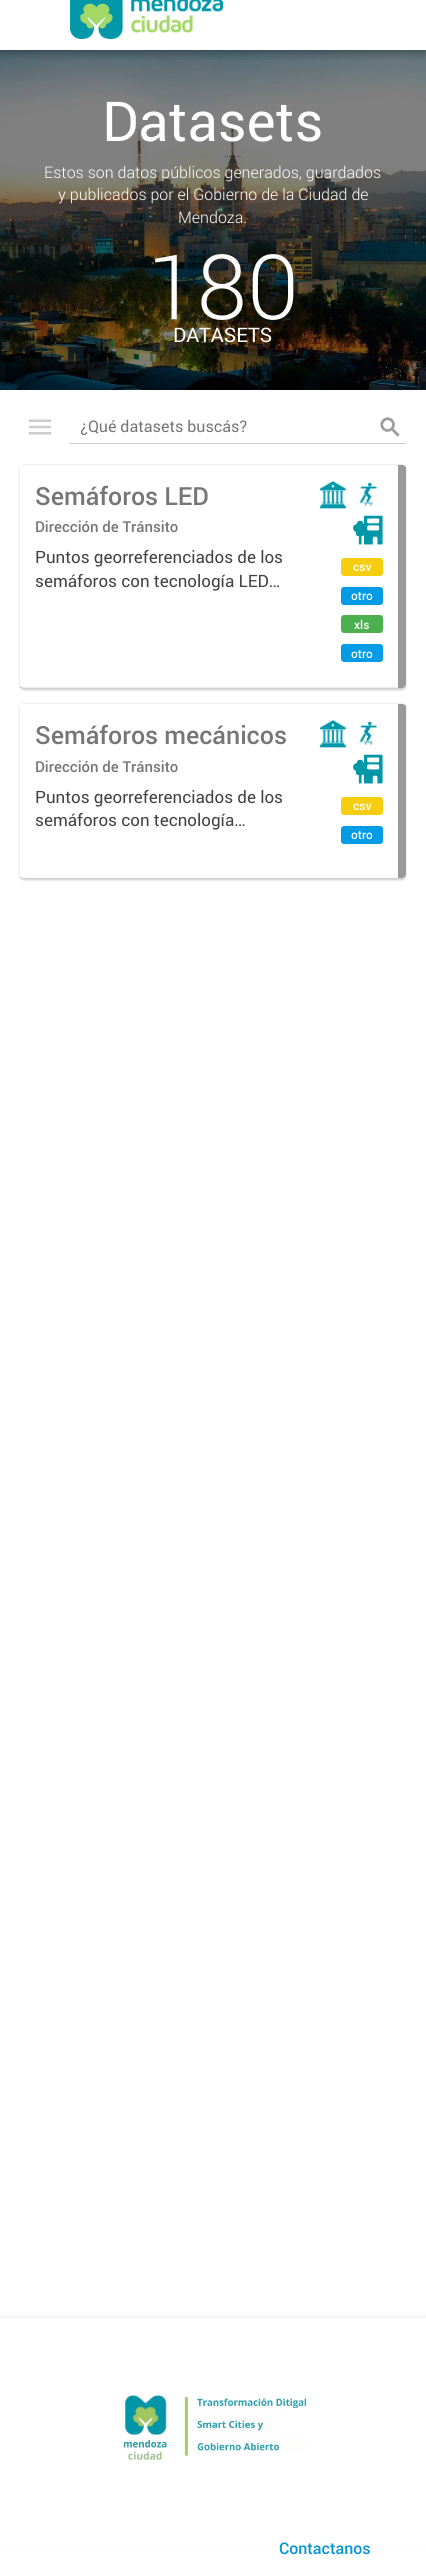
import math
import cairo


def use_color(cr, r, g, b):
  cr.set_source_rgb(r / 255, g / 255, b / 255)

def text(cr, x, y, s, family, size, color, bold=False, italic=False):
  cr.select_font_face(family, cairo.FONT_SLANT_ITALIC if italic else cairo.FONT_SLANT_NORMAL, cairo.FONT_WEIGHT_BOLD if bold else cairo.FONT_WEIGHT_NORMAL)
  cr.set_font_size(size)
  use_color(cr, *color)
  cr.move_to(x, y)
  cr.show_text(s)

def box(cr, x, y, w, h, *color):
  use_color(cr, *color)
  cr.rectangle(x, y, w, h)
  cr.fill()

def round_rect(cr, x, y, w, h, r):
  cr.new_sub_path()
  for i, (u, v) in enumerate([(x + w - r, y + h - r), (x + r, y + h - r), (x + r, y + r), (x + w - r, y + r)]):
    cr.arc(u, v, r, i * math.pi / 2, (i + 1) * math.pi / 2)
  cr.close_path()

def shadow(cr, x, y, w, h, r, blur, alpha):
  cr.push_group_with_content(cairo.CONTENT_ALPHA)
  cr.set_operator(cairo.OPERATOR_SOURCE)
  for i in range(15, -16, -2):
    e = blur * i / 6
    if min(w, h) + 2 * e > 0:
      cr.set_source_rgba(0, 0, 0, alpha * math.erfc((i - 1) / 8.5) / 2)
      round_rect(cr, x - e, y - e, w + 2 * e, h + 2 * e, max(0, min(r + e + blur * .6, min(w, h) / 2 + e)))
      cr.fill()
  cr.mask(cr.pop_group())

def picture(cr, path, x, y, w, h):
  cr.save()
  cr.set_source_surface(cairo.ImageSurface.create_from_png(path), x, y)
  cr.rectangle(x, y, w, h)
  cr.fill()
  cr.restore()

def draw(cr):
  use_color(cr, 255, 255, 255)
  cr.paint()
  picture(cr, "img_02.png", 0, 50, 426, 340)
  cr.save()
  cr.rectangle(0, 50, 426, 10)
  cr.clip()
  use_color(cr, 0, 0, 0)
  shadow(cr, 0, -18, 426, 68, 0, 6, 0.5)
  cr.restore()
  picture(cr, "img_01.png", 70, 0, 153, 39)
  picture(cr, "img_03.png", 28, 419, 24, 16)
  box(cr, 70, 443, 336, 1, 204, 204, 204)
  picture(cr, "img_04.png", 380, 417, 20, 20)
  cr.new_path()
  cr.move_to(20, 687.5)
  cr.line_to(406, 687.5)
  use_color(cr, 221, 221, 221)
  cr.set_line_width(1)
  cr.set_dash([1, 1])
  cr.stroke()
  cr.save()
  cr.set_fill_rule(cairo.FILL_RULE_EVEN_ODD)
  cr.new_path()
  cr.move_to(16, 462)
  cr.line_to(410, 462)
  cr.line_to(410, 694)
  cr.line_to(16, 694)
  cr.close_path()
  cr.move_to(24, 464)
  cr.line_to(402, 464)
  cr.curve_to(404, 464, 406, 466, 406, 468)
  cr.line_to(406, 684)
  cr.curve_to(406, 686, 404, 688, 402, 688)
  cr.line_to(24, 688)
  cr.curve_to(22, 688, 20, 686, 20, 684)
  cr.line_to(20, 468)
  cr.curve_to(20, 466, 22, 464, 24, 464)
  cr.close_path()
  cr.clip()
  use_color(cr, 0, 0, 0)
  shadow(cr, 20, 466, 386, 224, 4, 1, 0.2)
  cr.restore()
  box(cr, 22, 464, 382, 1, 238, 238, 238)
  use_color(cr, 153, 153, 153)
  cr.new_path()
  cr.move_to(398, 465)
  cr.line_to(398, 688)
  cr.line_to(402, 688)
  cr.curve_to(404, 688, 406, 686, 406, 684)
  cr.line_to(406, 468)
  cr.curve_to(406, 466, 404, 465, 402, 465)
  cr.close_path()
  cr.fill()
  picture(cr, "img_05.png", 319, 481, 28, 28)
  picture(cr, "img_06.png", 359, 482, 19, 25)
  picture(cr, "img_07.png", 353, 515, 30, 30)
  use_color(cr, 247, 205, 15)
  round_rect(cr, 341, 558, 42, 18, 3)
  cr.fill()
  use_color(cr, 3, 155, 229)
  round_rect(cr, 341, 587, 42, 18, 3)
  cr.fill()
  use_color(cr, 76, 175, 80)
  round_rect(cr, 341, 615, 42, 18, 3)
  cr.fill()
  use_color(cr, 3, 155, 229)
  round_rect(cr, 341, 644, 42, 18, 3)
  cr.fill()
  cr.save()
  cr.set_fill_rule(cairo.FILL_RULE_EVEN_ODD)
  cr.new_path()
  cr.move_to(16, 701)
  cr.line_to(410, 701)
  cr.line_to(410, 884)
  cr.line_to(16, 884)
  cr.close_path()
  cr.move_to(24, 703)
  cr.line_to(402, 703)
  cr.curve_to(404, 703, 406, 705, 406, 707)
  cr.line_to(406, 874)
  cr.curve_to(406, 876, 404, 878, 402, 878)
  cr.line_to(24, 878)
  cr.curve_to(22, 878, 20, 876, 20, 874)
  cr.line_to(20, 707)
  cr.curve_to(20, 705, 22, 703, 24, 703)
  cr.close_path()
  cr.clip()
  use_color(cr, 0, 0, 0)
  shadow(cr, 20, 705, 386, 175, 4, 1, 0.2)
  cr.restore()
  box(cr, 22, 703, 382, 1, 238, 238, 238)
  use_color(cr, 153, 153, 153)
  cr.new_path()
  cr.move_to(398, 704)
  cr.line_to(398, 878)
  cr.line_to(402, 878)
  cr.curve_to(404, 878, 406, 876, 406, 874)
  cr.line_to(406, 707)
  cr.curve_to(406, 705, 404, 704, 402, 704)
  cr.close_path()
  cr.fill()
  picture(cr, "img_05.png", 319, 720, 28, 28)
  picture(cr, "img_06.png", 359, 721, 19, 25)
  picture(cr, "img_08.png", 353, 754, 30, 30)
  use_color(cr, 247, 205, 15)
  round_rect(cr, 341, 797, 42, 18, 3)
  cr.fill()
  use_color(cr, 3, 155, 229)
  round_rect(cr, 341, 826, 42, 18, 3)
  cr.fill()
  cr.save()
  cr.set_fill_rule(cairo.FILL_RULE_EVEN_ODD)
  cr.new_path()
  cr.move_to(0, 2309)
  cr.line_to(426, 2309)
  cr.line_to(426, 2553)
  cr.line_to(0, 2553)
  cr.close_path()
  cr.move_to(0, 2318)
  cr.line_to(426, 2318)
  cr.line_to(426, 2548)
  cr.line_to(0, 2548)
  cr.close_path()
  cr.clip()
  use_color(cr, 220, 220, 220)
  shadow(cr, 0, 2316, 426, 230, 0, 2, 0.5)
  cr.restore()
  picture(cr, "img_09.png", 124, 2394, 182, 66)
  text(cr, 102, 141, "Datasets", "Roboto", 55, (255, 255, 255))
  text(cr, 44, 178, "Estos son datos públicos generados, guardados", "Roboto Light", 16, (255, 255, 255))
  text(cr, 58, 200, "y publicados por el Gobierno de la Ciudad de", "Roboto Light", 16, (255, 255, 255))
  text(cr, 178, 223, "Mendoza.", "Roboto Light", 16, (255, 255, 255))
  text(cr, 147, 319, "180", "Roboto Light", 90, (255, 255, 255))
  text(cr, 173, 342, "DATASETS", "Roboto", 20, (255, 255, 255))
  text(cr, 80, 432, "¿Qué datasets buscás?", "Roboto", 16, (118, 118, 118))
  text(cr, 35, 505, "Semáforos LED", "Roboto Medium", 25, (118, 118, 118))
  text(cr, 35, 532, "Dirección de Tránsito", "Roboto Medium", 15, (118, 118, 118))
  text(cr, 35, 563, "Puntos georreferenciados de los", "Roboto", 17, (66, 66, 66))
  text(cr, 35, 587, "semáforos con tecnología LED…", "Roboto", 17, (66, 66, 66))
  text(cr, 353, 571, "csv", "Roboto Medium", 12, (255, 255, 255))
  text(cr, 351, 600, "otro", "Roboto Medium", 12, (255, 255, 255))
  text(cr, 354, 629, "xls", "Roboto Medium", 12, (255, 255, 255))
  text(cr, 351, 658, "otro", "Roboto Medium", 12, (255, 255, 255))
  text(cr, 35, 744, "Semáforos mecánicos", "Roboto Medium", 25, (118, 118, 118))
  text(cr, 35, 772, "Dirección de Tránsito", "Roboto Medium", 15, (118, 118, 118))
  text(cr, 35, 803, "Puntos georreferenciados de los", "Roboto", 17, (66, 66, 66))
  text(cr, 35, 826, "semáforos con tecnología…", "Roboto", 17, (66, 66, 66))
  text(cr, 353, 810, "csv", "Roboto Medium", 12, (255, 255, 255))
  text(cr, 351, 839, "otro", "Roboto Medium", 12, (255, 255, 255))
  text(cr, 279, 2554, "Contactanos", "Roboto Medium", 16, (6, 149, 214))


surface = cairo.ImageSurface(cairo.FORMAT_RGB24, 426, 2570)
cr = cairo.Context(surface)
options = cairo.FontOptions()
options.set_hint_metrics(cairo.HINT_METRICS_OFF)
options.set_hint_style(cairo.HINT_STYLE_NONE)
cr.set_font_options(options)
cr.set_miter_limit(4)
draw(cr)
surface.write_to_png("out.png")
